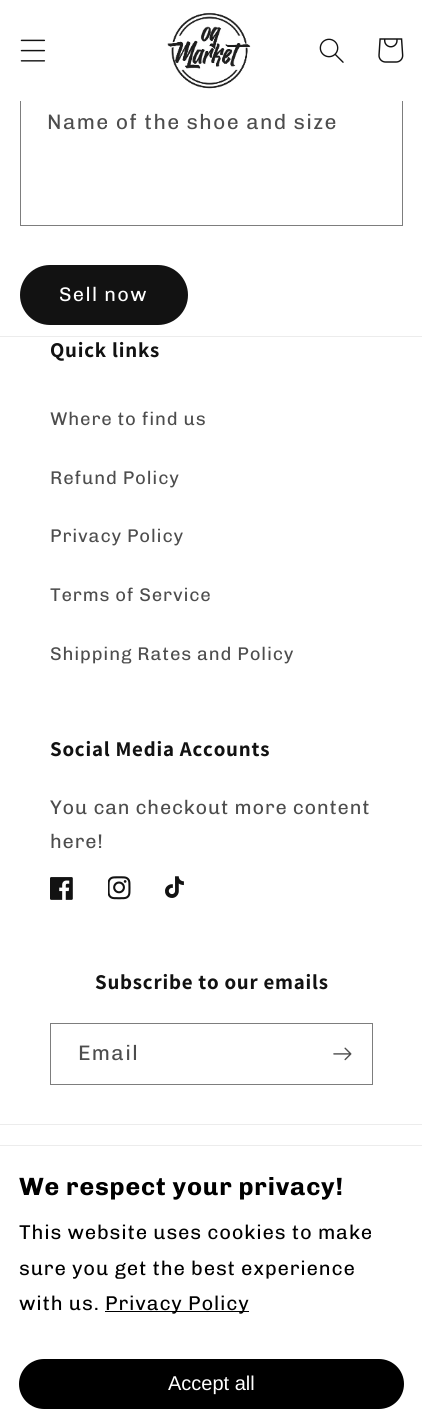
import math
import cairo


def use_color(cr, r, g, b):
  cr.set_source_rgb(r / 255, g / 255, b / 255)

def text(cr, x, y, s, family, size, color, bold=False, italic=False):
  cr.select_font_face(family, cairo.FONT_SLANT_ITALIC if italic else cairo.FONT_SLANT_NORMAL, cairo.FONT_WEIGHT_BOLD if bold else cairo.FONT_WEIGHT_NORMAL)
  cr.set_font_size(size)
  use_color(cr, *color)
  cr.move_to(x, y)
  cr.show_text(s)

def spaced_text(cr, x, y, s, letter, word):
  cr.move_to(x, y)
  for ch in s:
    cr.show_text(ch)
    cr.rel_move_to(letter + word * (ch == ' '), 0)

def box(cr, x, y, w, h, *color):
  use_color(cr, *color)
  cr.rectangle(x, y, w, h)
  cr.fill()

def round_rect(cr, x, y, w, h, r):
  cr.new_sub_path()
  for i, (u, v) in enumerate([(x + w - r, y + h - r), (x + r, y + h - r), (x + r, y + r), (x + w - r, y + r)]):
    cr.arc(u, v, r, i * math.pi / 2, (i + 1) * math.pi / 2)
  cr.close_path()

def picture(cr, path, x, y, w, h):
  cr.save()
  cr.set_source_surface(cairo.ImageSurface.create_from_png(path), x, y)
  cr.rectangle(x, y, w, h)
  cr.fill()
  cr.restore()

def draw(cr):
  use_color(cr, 255, 255, 255)
  cr.paint()
  cr.rectangle(20.5, 93.5, 382, 132)
  use_color(cr, 125, 125, 125)
  cr.set_line_width(1)
  cr.stroke()
  box(cr, 20, 93, 383, 8, 255, 255, 255)
  picture(cr, "img_01.png", 20, 39, 26, 23)
  picture(cr, "img_02.png", 167, 12, 84, 77)
  picture(cr, "img_03.png", 319, 38, 25, 25)
  picture(cr, "img_04.png", 378, 38, 26, 25)
  use_color(cr, 18, 18, 18)
  round_rect(cr, 20, 265, 168, 60, 30)
  cr.fill()
  box(cr, 0, 336, 422, 1, 236, 236, 236)
  picture(cr, "img_05.png", 50, 877, 23, 23)
  picture(cr, "img_06.png", 108, 876, 23, 24)
  picture(cr, "img_07.png", 165, 876, 19, 22)
  cr.rectangle(50.5, 1023.5, 322, 61)
  use_color(cr, 125, 125, 125)
  cr.stroke()
  picture(cr, "img_08.png", 333, 1047, 19, 14)
  box(cr, 0, 1124, 422, 1, 236, 236, 236)
  box(cr, 0, 1145, 422, 1, 236, 236, 236)
  box(cr, 105, 1311, 144, 1, 0, 0, 0)
  round_rect(cr, 19, 1359, 385, 50, 25)
  cr.fill()
  cr.select_font_face("Chivo")
  cr.set_font_size(21)
  use_color(cr, 77, 77, 77)
  spaced_text(cr, 47, 129, "Name of the shoe and size", 1.3, 0)
  cr.set_font_size(19.75)
  use_color(cr, 255, 255, 255)
  spaced_text(cr, 59, 301, "Sell now", 1.3, 0)
  cr.select_font_face("Assistant", cairo.FONT_SLANT_NORMAL, cairo.FONT_WEIGHT_BOLD)
  cr.set_font_size(21)
  use_color(cr, 18, 18, 18)
  spaced_text(cr, 50, 357, "Quick links", 0.8, 0)
  cr.select_font_face("Chivo")
  cr.set_font_size(18.4)
  use_color(cr, 77, 77, 77)
  spaced_text(cr, 50, 425, "Where to find us", 0.8, 0)
  spaced_text(cr, 50, 484, "Refund Policy", 0.8, 0)
  spaced_text(cr, 50, 542, "Privacy Policy", 0.8, 0)
  spaced_text(cr, 50, 601, "Terms of Service", 0.8, 0)
  spaced_text(cr, 50, 660, "Shipping Rates and Policy", 0.8, 0)
  cr.select_font_face("Assistant", cairo.FONT_SLANT_NORMAL, cairo.FONT_WEIGHT_BOLD)
  cr.set_font_size(21)
  use_color(cr, 18, 18, 18)
  spaced_text(cr, 50, 756, "Social Media Accounts", 0.8, 0)
  cr.select_font_face("Chivo")
  cr.set_font_size(19.75)
  use_color(cr, 77, 77, 77)
  spaced_text(cr, 50, 814, "You can checkout more content", 0.8, 0)
  spaced_text(cr, 50, 848, "here!", 0.8, 0)
  cr.select_font_face("Assistant", cairo.FONT_SLANT_NORMAL, cairo.FONT_WEIGHT_BOLD)
  cr.set_font_size(21)
  use_color(cr, 18, 18, 18)
  spaced_text(cr, 95, 989, "Subscribe to our emails", 0.8, 0)
  cr.select_font_face("Chivo")
  use_color(cr, 77, 77, 77)
  spaced_text(cr, 78, 1060, "Email", 1.3, 0)
  cr.select_font_face("Chivo", cairo.FONT_SLANT_NORMAL, cairo.FONT_WEIGHT_BOLD)
  cr.set_font_size(25)
  use_color(cr, 0, 0, 0)
  spaced_text(cr, 19, 1195, "We respect your privacy!", 0.8, 0)
  cr.select_font_face("Chivo")
  cr.set_font_size(20)
  spaced_text(cr, 19, 1239, "This website uses cookies to make", 0.8, 0)
  spaced_text(cr, 19, 1275, "sure you get the best experience", 0.8, 0)
  spaced_text(cr, 19, 1310, "with us.", 0.8, 0)
  spaced_text(cr, 105, 1310, "Privacy Policy", 0.8, 0)
  text(cr, 168, 1390, "Accept all", "Liberation Sans", 20, (255, 255, 255))


surface = cairo.ImageSurface(cairo.FORMAT_RGB24, 422, 1427)
cr = cairo.Context(surface)
options = cairo.FontOptions()
options.set_hint_metrics(cairo.HINT_METRICS_OFF)
options.set_hint_style(cairo.HINT_STYLE_NONE)
cr.set_font_options(options)
cr.set_miter_limit(4)
draw(cr)
surface.write_to_png("out.png")
